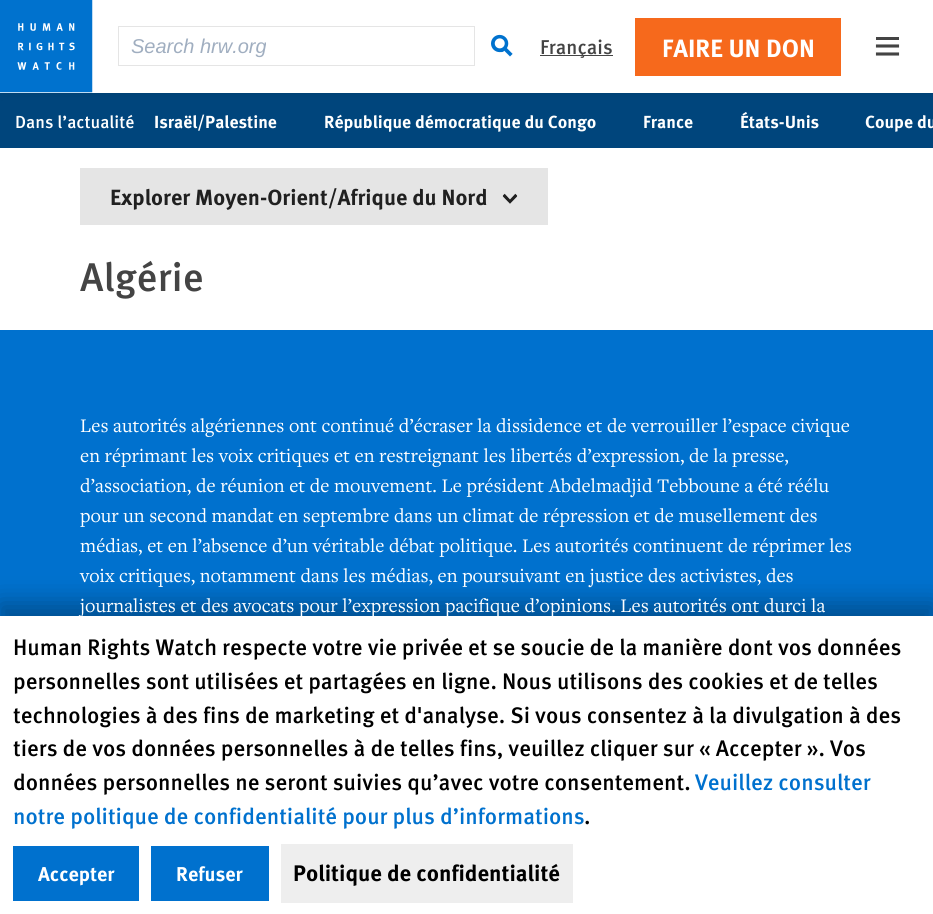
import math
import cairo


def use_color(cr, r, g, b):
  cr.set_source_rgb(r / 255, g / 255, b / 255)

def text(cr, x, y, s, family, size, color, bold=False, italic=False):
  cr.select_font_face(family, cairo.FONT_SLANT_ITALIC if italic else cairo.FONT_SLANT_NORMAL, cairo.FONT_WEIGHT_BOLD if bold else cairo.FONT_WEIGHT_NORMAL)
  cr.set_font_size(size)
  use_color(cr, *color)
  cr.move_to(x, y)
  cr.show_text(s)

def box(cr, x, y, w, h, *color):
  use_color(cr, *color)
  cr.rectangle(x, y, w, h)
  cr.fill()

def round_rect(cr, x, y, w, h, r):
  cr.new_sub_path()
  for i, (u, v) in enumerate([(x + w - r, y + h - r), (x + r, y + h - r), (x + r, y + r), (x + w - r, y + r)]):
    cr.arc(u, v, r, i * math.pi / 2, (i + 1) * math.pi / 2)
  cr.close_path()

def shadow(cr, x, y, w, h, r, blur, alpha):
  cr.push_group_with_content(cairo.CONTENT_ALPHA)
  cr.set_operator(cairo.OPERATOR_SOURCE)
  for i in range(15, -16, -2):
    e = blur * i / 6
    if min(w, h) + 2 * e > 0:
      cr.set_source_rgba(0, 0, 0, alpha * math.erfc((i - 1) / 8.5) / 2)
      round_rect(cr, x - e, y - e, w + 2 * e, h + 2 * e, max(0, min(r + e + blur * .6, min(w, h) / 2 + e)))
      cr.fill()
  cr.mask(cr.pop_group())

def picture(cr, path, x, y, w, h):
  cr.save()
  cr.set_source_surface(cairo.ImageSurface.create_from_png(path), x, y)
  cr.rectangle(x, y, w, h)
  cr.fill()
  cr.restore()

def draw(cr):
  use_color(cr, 255, 255, 255)
  cr.paint()
  box(cr, 0, 93, 933, 55, 0, 69, 124)
  use_color(cr, 0, 0, 0)
  shadow(cr, 0, 0, 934, 93, 0, 5, 0.1)
  box(cr, 0, 0, 933, 93, 255, 255, 255)
  picture(cr, "img_01.png", 0, 0, 93, 93)
  cr.rectangle(118.5, 26.5, 356, 39)
  use_color(cr, 229, 229, 229)
  cr.set_line_width(1)
  cr.stroke()
  picture(cr, "img_02.png", 491, 34, 22, 23)
  box(cr, 540, 55, 73, 1, 68, 68, 68)
  box(cr, 635, 18, 206, 58, 246, 105, 28)
  box(cr, 876, 37, 23, 3, 68, 68, 68)
  cr.new_path()
  cr.move_to(897.5, 46)
  cr.line_to(877.5, 46)
  cr.move_to(897.5, 54)
  cr.line_to(877.5, 54)
  cr.set_line_width(3.1)
  cr.set_line_cap(cairo.LINE_CAP_SQUARE)
  cr.stroke()
  box(cr, 80, 168, 468, 57, 229, 229, 229)
  picture(cr, "img_03.png", 502, 193, 16, 11)
  box(cr, 0, 330, 933, 286, 0, 113, 206)
  use_color(cr, 0, 0, 0)
  shadow(cr, -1, 603, 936, 301, 0, 12.5, 0.3)
  box(cr, 0, 616, 933, 298, 255, 255, 255)
  box(cr, 13, 846, 126, 55, 0, 113, 206)
  box(cr, 151, 846, 118, 55, 0, 113, 206)
  box(cr, 281, 844, 292, 59, 238, 238, 238)
  text(cr, 131, 53, "Search hrw.org", "Liberation Sans", 20, (160, 174, 192), italic=True)
  text(cr, 540, 54, "Français", "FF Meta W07 Medium", 20, (68, 68, 68))
  text(cr, 662, 57, "FAIRE UN DON", "FF Meta W07", 25, (255, 255, 255), bold=True)
  text(cr, 15, 128, "Dans l’actualité", "FF Meta W07 Medium", 17.5, (255, 255, 255))
  text(cr, 154, 128, "Israël/Palestine", "FF Meta W07", 17.5, (255, 255, 255), bold=True)
  text(cr, 324, 128, "République démocratique du Congo", "FF Meta W07", 17.5, (255, 255, 255), bold=True)
  text(cr, 643, 128, "France", "FF Meta W07", 17.5, (255, 255, 255), bold=True)
  text(cr, 740, 128, "États-Unis", "FF Meta W07", 17.5, (255, 255, 255), bold=True)
  text(cr, 865, 128, "Coupe du", "FF Meta W07", 17.5, (255, 255, 255), bold=True)
  text(cr, 110, 205, "Explorer Moyen-Orient/Afrique du Nord", "FF Meta W07", 22, (32, 32, 32), bold=True)
  text(cr, 80, 291, "Algérie", "FF Meta W07 Medium", 40, (68, 68, 68))
  text(cr, 80, 432, "Les autorités algériennes ont continué d’écraser la dissidence et de verrouiller l’espace civique", "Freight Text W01", 20, (255, 255, 255))
  text(cr, 80, 462, "en réprimant les voix critiques et en restreignant les libertés d’expression, de la presse,", "Freight Text W01", 20, (255, 255, 255))
  text(cr, 80, 492, "d’association, de réunion et de mouvement. Le président Abdelmadjid Tebboune a été réélu", "Freight Text W01", 20, (255, 255, 255))
  text(cr, 80, 522, "pour un second mandat en septembre dans un climat de répression et de musellement des", "Freight Text W01", 20, (255, 255, 255))
  text(cr, 80, 552, "médias, et en l’absence d’un véritable débat politique. Les autorités continuent de réprimer les", "Freight Text W01", 20, (255, 255, 255))
  text(cr, 80, 582, "voix critiques, notamment dans les médias, en poursuivant en justice des activistes, des", "Freight Text W01", 20, (255, 255, 255))
  text(cr, 80, 612, "journalistes et des avocats pour l’expression pacifique d’opinions. Les autorités ont durci la", "Freight Text W01", 20, (255, 255, 255))
  text(cr, 13, 655, "Human Rights Watch respecte votre vie privée et se soucie de la manière dont vos données", "FF Meta W07 Medium", 22.5, (0, 0, 0))
  text(cr, 13, 689, "personnelles sont utilisées et partagées en ligne. Nous utilisons des cookies et de telles", "FF Meta W07 Medium", 22.5, (0, 0, 0))
  text(cr, 13, 723, "technologies à des fins de marketing et d'analyse. Si vous consentez à la divulgation à des", "FF Meta W07 Medium", 22.5, (0, 0, 0))
  text(cr, 13, 756, "tiers de vos données personnelles à de telles fins, veuillez cliquer sur « Accepter ». Vos", "FF Meta W07 Medium", 22.5, (0, 0, 0))
  text(cr, 13, 790, "données personnelles ne seront suivies qu’avec votre consentement.", "FF Meta W07 Medium", 22.5, (0, 0, 0))
  text(cr, 695, 790, "Veuillez consulter", "FF Meta W07 Medium", 22.5, (0, 113, 206))
  text(cr, 13, 824, "notre politique de confidentialité pour plus d’informations", "FF Meta W07 Medium", 22.5, (0, 113, 206))
  text(cr, 584, 824, ".", "FF Meta W07 Medium", 22.5, (0, 0, 0))
  text(cr, 38, 881, "Accepter", "FF Meta W07", 20, (255, 255, 255), bold=True)
  text(cr, 176, 881, "Refuser", "FF Meta W07", 20, (255, 255, 255), bold=True)
  text(cr, 293, 881, "Politique de confidentialité", "FF Meta W07", 22.5, (0, 0, 0), bold=True)


surface = cairo.ImageSurface(cairo.FORMAT_RGB24, 933, 914)
cr = cairo.Context(surface)
options = cairo.FontOptions()
options.set_hint_metrics(cairo.HINT_METRICS_OFF)
options.set_hint_style(cairo.HINT_STYLE_NONE)
cr.set_font_options(options)
cr.set_miter_limit(4)
draw(cr)
surface.write_to_png("out.png")
